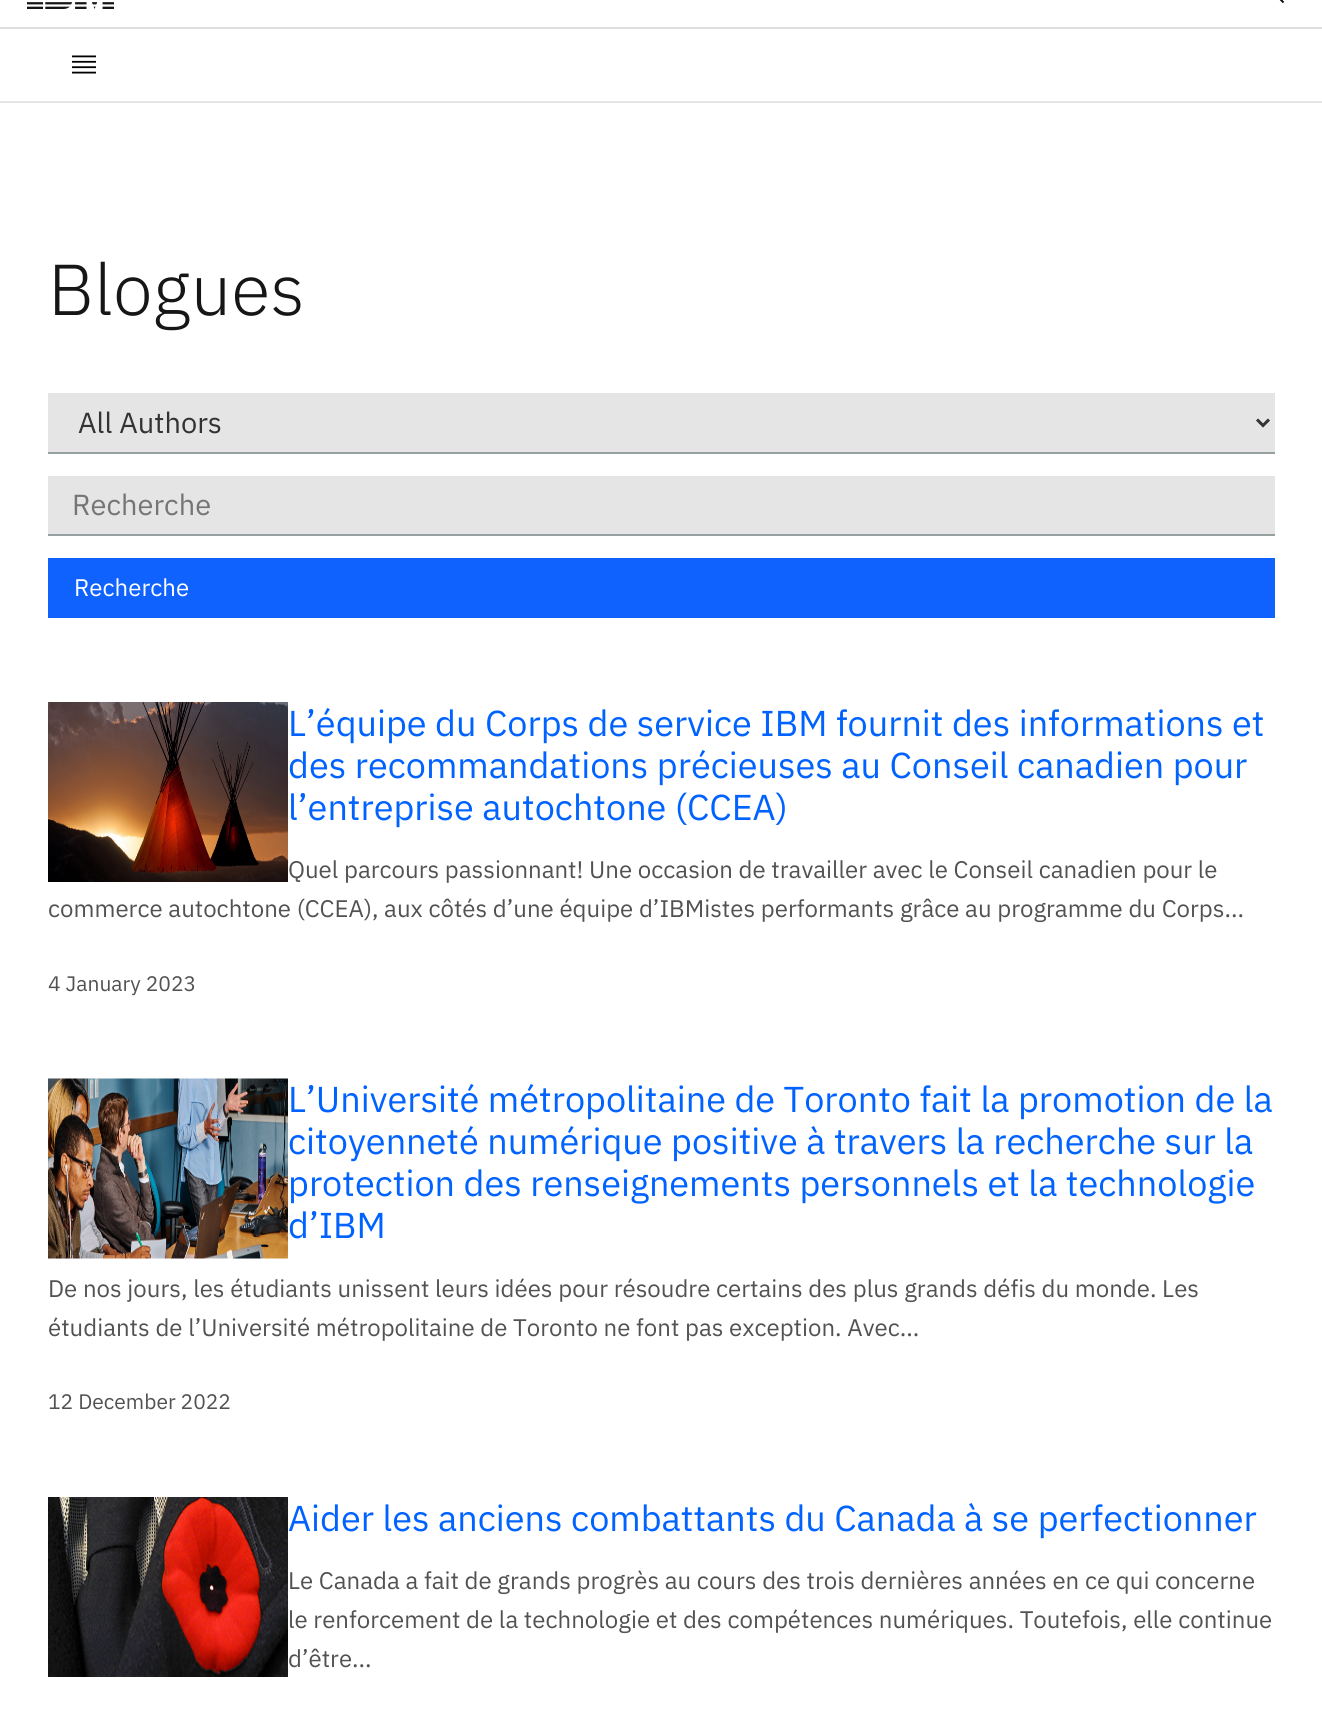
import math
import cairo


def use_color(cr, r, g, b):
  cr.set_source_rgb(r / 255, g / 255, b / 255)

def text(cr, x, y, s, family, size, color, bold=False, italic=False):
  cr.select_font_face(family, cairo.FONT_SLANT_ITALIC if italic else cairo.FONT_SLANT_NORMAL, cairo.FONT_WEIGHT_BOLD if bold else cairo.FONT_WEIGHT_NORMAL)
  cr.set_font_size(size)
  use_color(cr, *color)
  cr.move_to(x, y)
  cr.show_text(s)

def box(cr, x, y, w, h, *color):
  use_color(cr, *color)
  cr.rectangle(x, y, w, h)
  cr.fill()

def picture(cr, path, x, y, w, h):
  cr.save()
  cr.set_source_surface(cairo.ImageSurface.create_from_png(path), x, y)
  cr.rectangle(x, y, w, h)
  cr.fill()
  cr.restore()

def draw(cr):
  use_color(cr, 255, 255, 255)
  cr.paint()
  picture(cr, "img_01.png", 27, 2, 87, 7)
  picture(cr, "img_02.png", 1279, 0, 6, 4)
  box(cr, 0, 27, 1322, 2, 224, 224, 224)
  picture(cr, "img_03.png", 72, 55, 24, 19)
  box(cr, 0, 101, 1322, 2, 229, 229, 229)
  box(cr, 48, 393, 1227, 59, 229, 229, 229)
  box(cr, 48, 452, 1227, 2, 149, 159, 159)
  cr.new_path()
  cr.move_to(1257, 419.5)
  cr.line_to(1263, 425.5)
  cr.line_to(1269, 419.5)
  use_color(cr, 51, 51, 51)
  cr.set_line_width(3)
  cr.stroke()
  box(cr, 48, 476, 1227, 58, 229, 229, 229)
  box(cr, 48, 534, 1227, 2, 149, 159, 159)
  box(cr, 48, 558, 1227, 60, 15, 98, 254)
  picture(cr, "img_04.png", 48, 702, 240, 180)
  picture(cr, "img_05.png", 48, 1078, 240, 181)
  picture(cr, "img_06.png", 48, 1497, 240, 180)
  text(cr, 48, 315, "Blogues", "IBM Plex Sans Light", 72, (22, 22, 22))
  text(cr, 78, 433, "All Authors", "IBM Plex Sans", 29, (51, 51, 51))
  text(cr, 72, 515, "Recherche", "IBM Plex Sans", 29, (117, 117, 117))
  text(cr, 74, 596, "Recherche", "IBM Plex Sans", 24, (255, 255, 255))
  text(cr, 288, 736, "L’équipe du Corps de service IBM fournit des informations et", "IBM Plex Sans", 36, (0, 98, 255))
  text(cr, 288, 778, "des recommandations précieuses au Conseil canadien pour", "IBM Plex Sans", 36, (0, 98, 255))
  text(cr, 288, 820, "l’entreprise autochtone (CCEA)", "IBM Plex Sans", 36, (0, 98, 255))
  text(cr, 288, 878, "Quel parcours passionnant! Une occasion de travailler avec le Conseil canadien pour le", "IBM Plex Sans", 24, (82, 82, 82))
  text(cr, 48, 917, "commerce autochtone (CCEA), aux côtés d’une équipe d’IBMistes performants grâce au programme du Corps...", "IBM Plex Sans", 24, (82, 82, 82))
  text(cr, 48, 991, "4 January 2023", "IBM Plex Sans", 21, (82, 82, 82))
  text(cr, 288, 1112, "L’Université métropolitaine de Toronto fait la promotion de la", "IBM Plex Sans", 36, (0, 98, 255))
  text(cr, 288, 1154, "citoyenneté numérique positive à travers la recherche sur la", "IBM Plex Sans", 36, (0, 98, 255))
  text(cr, 288, 1196, "protection des renseignements personnels et la technologie", "IBM Plex Sans", 36, (0, 98, 255))
  text(cr, 288, 1238, "d’IBM", "IBM Plex Sans", 36, (0, 98, 255))
  text(cr, 48, 1297, "De nos jours, les étudiants unissent leurs idées pour résoudre certains des plus grands défis du monde. Les", "IBM Plex Sans", 24, (82, 82, 82))
  text(cr, 48, 1336, "étudiants de l’Université métropolitaine de Toronto ne font pas exception. Avec...", "IBM Plex Sans", 24, (82, 82, 82))
  text(cr, 48, 1409, "12 December 2022", "IBM Plex Sans", 21, (82, 82, 82))
  text(cr, 288, 1531, "Aider les anciens combattants du Canada à se perfectionner", "IBM Plex Sans", 36, (0, 98, 255))
  text(cr, 288, 1589, "Le Canada a fait de grands progrès au cours des trois dernières années en ce qui concerne", "IBM Plex Sans", 24, (82, 82, 82))
  text(cr, 288, 1628, "le renforcement de la technologie et des compétences numériques. Toutefois, elle continue", "IBM Plex Sans", 24, (82, 82, 82))
  text(cr, 288, 1667, "d’être...", "IBM Plex Sans", 24, (82, 82, 82))


surface = cairo.ImageSurface(cairo.FORMAT_RGB24, 1322, 1731)
cr = cairo.Context(surface)
options = cairo.FontOptions()
options.set_hint_metrics(cairo.HINT_METRICS_OFF)
options.set_hint_style(cairo.HINT_STYLE_NONE)
cr.set_font_options(options)
cr.set_miter_limit(4)
draw(cr)
surface.write_to_png("out.png")
